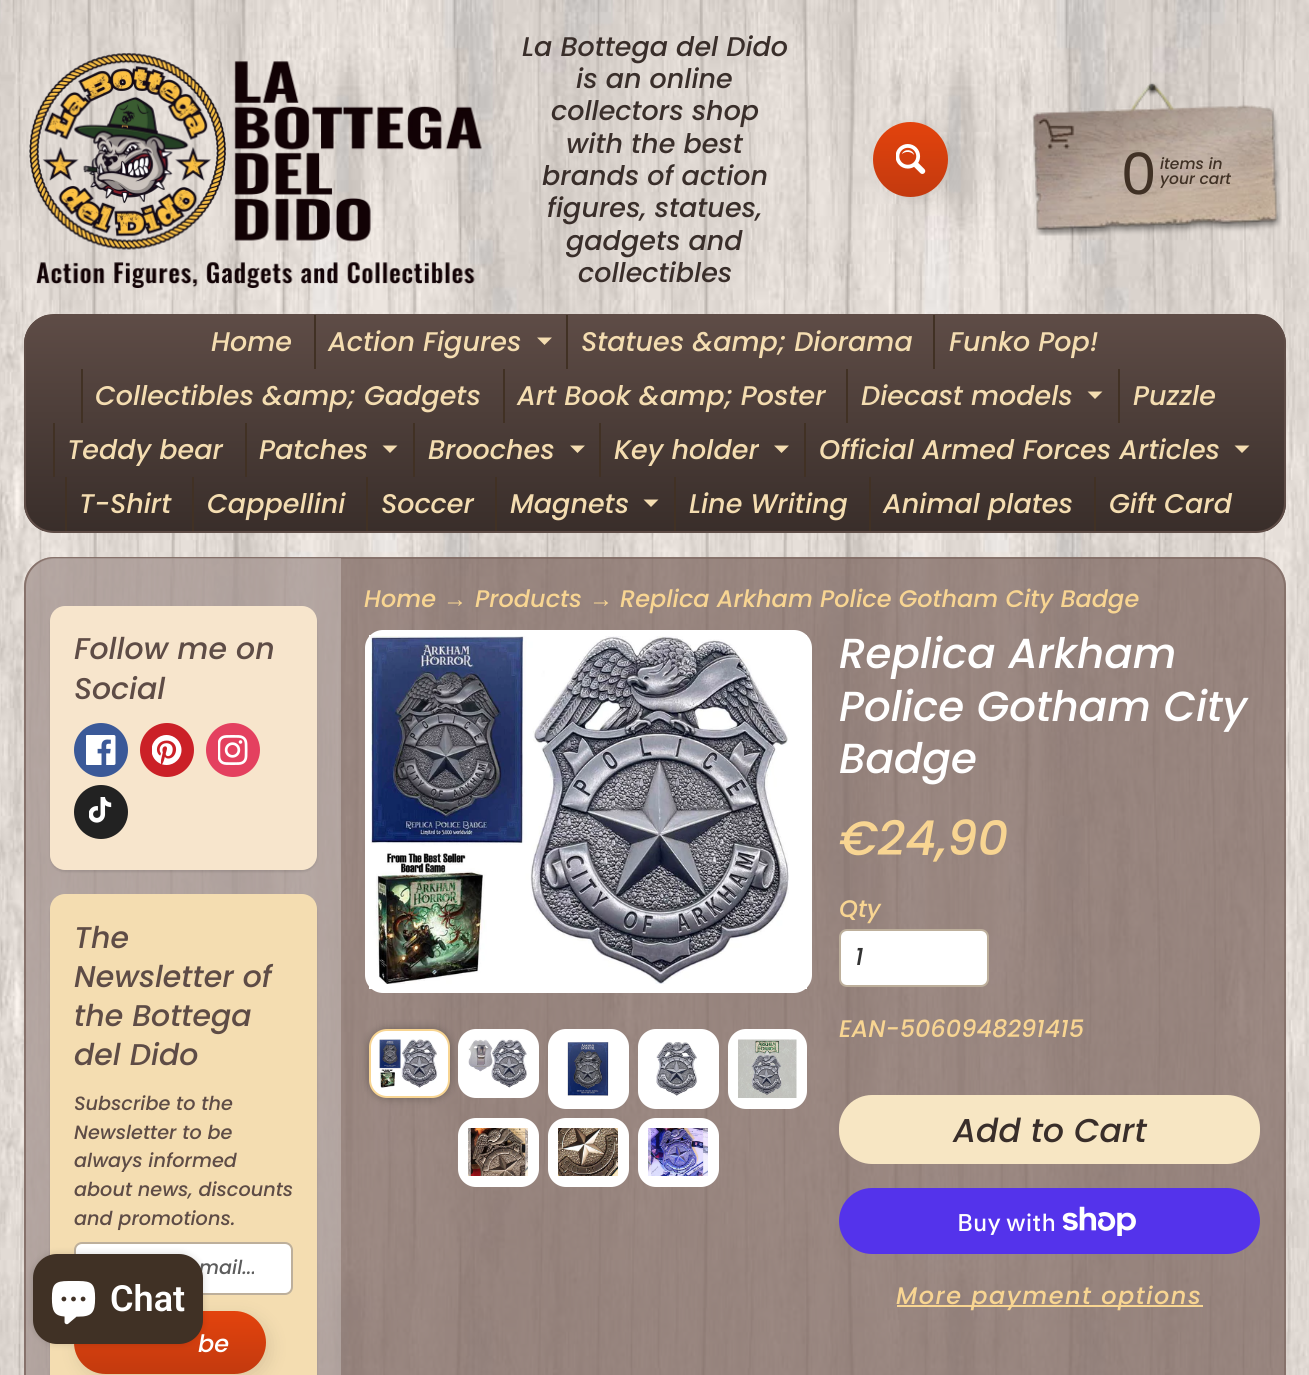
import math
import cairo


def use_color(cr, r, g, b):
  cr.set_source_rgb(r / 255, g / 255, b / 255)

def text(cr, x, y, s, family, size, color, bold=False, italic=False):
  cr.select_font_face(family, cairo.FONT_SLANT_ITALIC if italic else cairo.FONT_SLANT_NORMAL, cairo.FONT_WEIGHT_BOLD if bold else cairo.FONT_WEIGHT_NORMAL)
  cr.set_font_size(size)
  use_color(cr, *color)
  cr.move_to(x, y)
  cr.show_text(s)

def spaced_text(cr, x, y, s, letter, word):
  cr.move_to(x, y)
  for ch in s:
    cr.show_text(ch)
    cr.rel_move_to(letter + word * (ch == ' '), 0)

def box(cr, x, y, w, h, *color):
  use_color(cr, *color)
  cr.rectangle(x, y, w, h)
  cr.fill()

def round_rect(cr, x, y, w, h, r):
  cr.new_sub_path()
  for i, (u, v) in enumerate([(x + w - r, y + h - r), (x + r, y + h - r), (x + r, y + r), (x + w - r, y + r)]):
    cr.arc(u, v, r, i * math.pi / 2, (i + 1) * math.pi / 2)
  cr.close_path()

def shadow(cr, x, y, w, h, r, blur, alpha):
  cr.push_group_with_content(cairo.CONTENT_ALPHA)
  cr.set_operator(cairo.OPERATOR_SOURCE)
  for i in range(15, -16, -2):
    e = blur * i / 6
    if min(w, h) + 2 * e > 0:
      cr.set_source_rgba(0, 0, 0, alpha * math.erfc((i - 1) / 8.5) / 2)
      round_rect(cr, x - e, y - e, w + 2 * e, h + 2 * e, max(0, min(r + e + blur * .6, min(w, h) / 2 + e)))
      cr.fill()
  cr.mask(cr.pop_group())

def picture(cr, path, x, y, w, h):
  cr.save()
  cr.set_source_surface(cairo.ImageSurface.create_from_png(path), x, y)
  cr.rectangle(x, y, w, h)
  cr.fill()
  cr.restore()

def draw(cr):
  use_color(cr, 255, 255, 255)
  cr.paint()
  picture(cr, "img_01.png", 0, 0, 1309, 1375)
  picture(cr, "img_02.png", 29, 52, 453, 236)
  use_color(cr, 0, 0, 0)
  shadow(cr, 878, 126, 75, 75, 37.5, 9, 0.1)
  gradient = cairo.LinearGradient(911, 122, 911, 197)
  gradient.add_color_stop_rgba(0, 0.89, 0.263, 0.051, 1)
  gradient.add_color_stop_rgba(1, 0.765, 0.227, 0.055, 1)
  cr.set_source(gradient)
  cr.arc(910.5, 159.5, 37.5, 0, 2 * math.pi)
  cr.fill()
  picture(cr, "img_03.png", 896, 144, 30, 30)
  picture(cr, "img_04.png", 1031, 82, 251, 154)
  cr.save()
  round_rect(cr, 24, 314, 1262, 219, 30)
  cr.clip()
  gradient = cairo.LinearGradient(655, 315, 655, 531)
  gradient.add_color_stop_rgba(0, 0.369, 0.298, 0.275, 1)
  gradient.add_color_stop_rgba(1, 0.224, 0.18, 0.165, 1)
  cr.set_source(gradient)
  cr.rectangle(24, 315, 1262, 216)
  cr.fill()
  cr.restore()
  round_rect(cr, 25, 315, 1260, 217, 29)
  use_color(cr, 94, 76, 70)
  cr.stroke()
  box(cr, 314, 315, 2, 54, 65, 49, 36)
  use_color(cr, 244, 221, 177)
  cr.new_path()
  cr.move_to(537, 337.5)
  cr.line_to(552, 337.5)
  cr.line_to(544.5, 345)
  cr.close_path()
  cr.fill()
  box(cr, 566, 315, 2, 54, 65, 49, 36)
  box(cr, 933, 315, 2, 54, 65, 49, 36)
  box(cr, 81, 369, 2, 54, 65, 49, 36)
  box(cr, 503, 369, 2, 54, 65, 49, 36)
  box(cr, 846, 369, 2, 54, 65, 49, 36)
  use_color(cr, 244, 221, 177)
  cr.new_path()
  cr.move_to(1087.5, 391.5)
  cr.line_to(1102.5, 391.5)
  cr.line_to(1095, 399)
  cr.close_path()
  cr.fill()
  box(cr, 1118, 369, 2, 54, 65, 49, 36)
  box(cr, 53, 423, 2, 54, 65, 49, 36)
  box(cr, 245, 423, 2, 54, 65, 49, 36)
  use_color(cr, 244, 221, 177)
  cr.new_path()
  cr.move_to(382.5, 445.5)
  cr.line_to(397.5, 445.5)
  cr.line_to(390, 453)
  cr.close_path()
  cr.fill()
  box(cr, 413, 423, 2, 54, 65, 49, 36)
  use_color(cr, 244, 221, 177)
  cr.new_path()
  cr.move_to(570, 445.5)
  cr.line_to(585, 445.5)
  cr.line_to(577.5, 453)
  cr.close_path()
  cr.fill()
  box(cr, 599, 423, 2, 54, 65, 49, 36)
  use_color(cr, 244, 221, 177)
  cr.new_path()
  cr.move_to(774, 445.5)
  cr.line_to(789, 445.5)
  cr.line_to(781.5, 453)
  cr.close_path()
  cr.fill()
  box(cr, 804, 423, 2, 54, 65, 49, 36)
  use_color(cr, 244, 221, 177)
  cr.new_path()
  cr.move_to(1234.5, 445.5)
  cr.line_to(1249.5, 445.5)
  cr.line_to(1242, 453)
  cr.close_path()
  cr.fill()
  box(cr, 65, 477, 2, 54, 65, 49, 36)
  box(cr, 192, 477, 2, 54, 65, 49, 36)
  box(cr, 366, 477, 2, 54, 65, 49, 36)
  box(cr, 495, 477, 2, 54, 65, 49, 36)
  use_color(cr, 244, 221, 177)
  cr.new_path()
  cr.move_to(643.5, 499.5)
  cr.line_to(658.5, 499.5)
  cr.line_to(651, 507)
  cr.close_path()
  cr.fill()
  box(cr, 674, 477, 2, 54, 65, 49, 36)
  box(cr, 869, 477, 2, 54, 65, 49, 36)
  box(cr, 1094, 477, 2, 54, 65, 49, 36)
  cr.set_source_rgba(0.502, 0.416, 0.388, 0.75)
  round_rect(cr, 24, 557, 1262, 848, 30)
  cr.fill()
  round_rect(cr, 25, 558, 1260, 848, 29)
  cr.set_source_rgba(0.502, 0.416, 0.388, 0.7)
  cr.stroke()
  cr.set_source_rgba(1, 1, 1, 0.25)
  cr.new_path()
  cr.move_to(55, 558)
  cr.line_to(341, 558)
  cr.line_to(341, 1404)
  cr.line_to(55, 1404)
  cr.curve_to(39, 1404, 26, 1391, 26, 1375)
  cr.line_to(26, 587)
  cr.curve_to(26, 571, 39, 558, 55, 558)
  cr.close_path()
  cr.fill()
  use_color(cr, 0, 0, 0)
  shadow(cr, 50, 608, 267, 264, 15, 1, 0.1)
  use_color(cr, 247, 229, 204)
  round_rect(cr, 50, 606, 267, 264, 15)
  cr.fill()
  use_color(cr, 59, 89, 152)
  cr.arc(101, 750, 27, 0, 2 * math.pi)
  cr.fill()
  picture(cr, "img_05.png", 86, 735, 30, 30)
  use_color(cr, 203, 32, 39)
  cr.arc(167, 750, 27, 0, 2 * math.pi)
  cr.fill()
  picture(cr, "img_06.png", 152, 735, 30, 30)
  use_color(cr, 228, 64, 95)
  cr.arc(233, 750, 27, 0, 2 * math.pi)
  cr.fill()
  picture(cr, "img_07.png", 218, 735, 30, 30)
  use_color(cr, 34, 34, 34)
  cr.arc(101, 812, 27, 0, 2 * math.pi)
  cr.fill()
  picture(cr, "img_08.png", 89, 797, 23, 26)
  use_color(cr, 0, 0, 0)
  shadow(cr, 50, 896, 267, 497, 15, 1, 0.1)
  use_color(cr, 244, 221, 177)
  round_rect(cr, 50, 894, 267, 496, 15)
  cr.fill()
  use_color(cr, 255, 255, 255)
  round_rect(cr, 75, 1243, 217, 51, 7)
  cr.fill_preserve()
  use_color(cr, 189, 175, 155)
  cr.stroke()
  use_color(cr, 0, 0, 0)
  shadow(cr, 78, 1316, 192, 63, 31.5, 9, 0.1)
  gradient = cairo.LinearGradient(170, 1311, 170, 1374)
  gradient.add_color_stop_rgba(0, 0.89, 0.263, 0.051, 1)
  gradient.add_color_stop_rgba(1, 0.765, 0.227, 0.055, 1)
  cr.set_source(gradient)
  round_rect(cr, 74, 1311, 192, 63, 31.5)
  cr.fill()
  use_color(cr, 255, 255, 255)
  round_rect(cr, 365, 630, 447, 363, 18)
  cr.fill()
  box(cr, 369, 635, 438, 354, 255, 255, 255)
  picture(cr, "img_09.png", 370, 636, 419, 348)
  use_color(cr, 0, 0, 0)
  shadow(cr, 369, 1029, 81, 69, 18, 4.5, 0.3)
  use_color(cr, 255, 255, 255)
  round_rect(cr, 370, 1030, 79, 67, 17)
  cr.fill_preserve()
  use_color(cr, 248, 213, 146)
  cr.stroke()
  picture(cr, "img_10.png", 379, 1039, 59, 49)
  use_color(cr, 255, 255, 255)
  round_rect(cr, 459, 1030, 79, 67, 17)
  cr.fill_preserve()
  cr.stroke()
  picture(cr, "img_11.png", 468, 1039, 59, 49)
  round_rect(cr, 549, 1030, 79, 78, 17)
  cr.fill_preserve()
  cr.stroke()
  picture(cr, "img_12.png", 567, 1042, 42, 54)
  round_rect(cr, 639, 1030, 79, 78, 17)
  cr.fill_preserve()
  cr.stroke()
  picture(cr, "img_13.png", 656, 1042, 42, 54)
  round_rect(cr, 729, 1030, 77, 78, 17)
  cr.fill_preserve()
  cr.stroke()
  picture(cr, "img_14.png", 738, 1039, 59, 59)
  round_rect(cr, 459, 1119, 79, 67, 17)
  cr.fill_preserve()
  cr.stroke()
  picture(cr, "img_15.png", 468, 1128, 60, 48)
  round_rect(cr, 549, 1119, 79, 67, 17)
  cr.fill_preserve()
  cr.stroke()
  picture(cr, "img_16.png", 558, 1128, 60, 48)
  round_rect(cr, 639, 1119, 79, 67, 17)
  cr.fill_preserve()
  cr.stroke()
  picture(cr, "img_17.png", 648, 1128, 60, 48)
  round_rect(cr, 840, 930, 148, 56, 7)
  cr.fill_preserve()
  use_color(cr, 189, 175, 155)
  cr.stroke()
  use_color(cr, 247, 230, 195)
  round_rect(cr, 839, 1095, 421, 69, 33)
  cr.fill()
  use_color(cr, 84, 51, 235)
  round_rect(cr, 839, 1188, 421, 66, 33)
  cr.fill()
  picture(cr, "img_18.png", 1062, 1206, 74, 30)
  box(cr, 897, 1305, 306, 2, 248, 213, 146)
  use_color(cr, 0, 0, 0)
  shadow(cr, 33, 1254, 170, 90, 24, 4, 0.15)
  text(cr, 522, 56, "La Bottega del Dido", "Poppins Medium", 27, (57, 46, 42), italic=True)
  text(cr, 576, 88, "is an online", "Poppins Medium", 27, (57, 46, 42), italic=True)
  text(cr, 551, 120, "collectors shop", "Poppins Medium", 27, (57, 46, 42), italic=True)
  text(cr, 566, 153, "with the best", "Poppins Medium", 27, (57, 46, 42), italic=True)
  text(cr, 542, 185, "brands of action", "Poppins Medium", 27, (57, 46, 42), italic=True)
  text(cr, 547, 217, "figures, statues,", "Poppins Medium", 27, (57, 46, 42), italic=True)
  text(cr, 566, 250, "gadgets and", "Poppins Medium", 27, (57, 46, 42), italic=True)
  text(cr, 578, 282, "collectibles", "Poppins Medium", 27, (57, 46, 42), italic=True)
  text(cr, 1122, 194, "0", "Liberation Sans", 60, (64, 49, 37))
  text(cr, 1160, 169, "items in", "Poppins Medium", 15.5, (64, 49, 37), italic=True)
  text(cr, 1160, 184, "your cart", "Poppins Medium", 15.5, (64, 49, 37), italic=True)
  text(cr, 211, 351, "Home", "Poppins Medium", 27, (244, 221, 177), italic=True)
  text(cr, 328, 351, "Action Figures", "Poppins Medium", 27, (244, 221, 177), italic=True)
  text(cr, 581, 351, "Statues &amp; Diorama", "Poppins Medium", 27, (244, 221, 177), italic=True)
  text(cr, 949, 351, "Funko Pop!", "Poppins Medium", 27, (244, 221, 177), italic=True)
  text(cr, 95, 405, "Collectibles &amp; Gadgets", "Poppins Medium", 27, (244, 221, 177), italic=True)
  text(cr, 517, 405, "Art Book &amp; Poster", "Poppins Medium", 27, (244, 221, 177), italic=True)
  text(cr, 861, 405, "Diecast models", "Poppins Medium", 27, (244, 221, 177), italic=True)
  text(cr, 1133, 405, "Puzzle", "Poppins Medium", 27, (244, 221, 177), italic=True)
  text(cr, 67, 459, "Teddy bear", "Poppins Medium", 27, (244, 221, 177), italic=True)
  text(cr, 259, 459, "Patches", "Poppins Medium", 27, (244, 221, 177), italic=True)
  text(cr, 428, 459, "Brooches", "Poppins Medium", 27, (244, 221, 177), italic=True)
  text(cr, 614, 459, "Key holder", "Poppins Medium", 27, (244, 221, 177), italic=True)
  text(cr, 819, 459, "Official Armed Forces Articles", "Poppins Medium", 27, (244, 221, 177), italic=True)
  text(cr, 79, 513, "T-Shirt", "Poppins Medium", 27, (244, 221, 177), italic=True)
  text(cr, 207, 513, "Cappellini", "Poppins Medium", 27, (244, 221, 177), italic=True)
  text(cr, 381, 513, "Soccer", "Poppins Medium", 27, (244, 221, 177), italic=True)
  text(cr, 510, 513, "Magnets", "Poppins Medium", 27, (244, 221, 177), italic=True)
  text(cr, 689, 513, "Line Writing", "Poppins Medium", 27, (244, 221, 177), italic=True)
  text(cr, 883, 513, "Animal plates", "Poppins Medium", 27, (244, 221, 177), italic=True)
  text(cr, 1109, 513, "Gift Card", "Poppins Medium", 27, (244, 221, 177), italic=True)
  text(cr, 74, 659, "Follow me on", "Poppins Medium", 30, (94, 76, 70), italic=True)
  text(cr, 74, 699, "Social", "Poppins Medium", 30, (94, 76, 70), italic=True)
  text(cr, 74, 948, "The", "Poppins Medium", 30, (94, 76, 70), italic=True)
  text(cr, 74, 987, "Newsletter of", "Poppins Medium", 30, (94, 76, 70), italic=True)
  text(cr, 74, 1026, "the Bottega", "Poppins Medium", 30, (94, 76, 70), italic=True)
  text(cr, 74, 1065, "del Dido", "Poppins Medium", 30, (94, 76, 70), italic=True)
  text(cr, 74, 1110, "Subscribe to the", "Poppins Medium", 19.25, (94, 76, 70), italic=True)
  text(cr, 74, 1139, "Newsletter to be", "Poppins Medium", 19.25, (94, 76, 70), italic=True)
  text(cr, 74, 1167, "always informed", "Poppins Medium", 19.25, (94, 76, 70), italic=True)
  text(cr, 74, 1196, "about news, discounts", "Poppins Medium", 19.25, (94, 76, 70), italic=True)
  text(cr, 74, 1225, "and promotions.", "Poppins Medium", 19.25, (94, 76, 70), italic=True)
  text(cr, 199, 1274, "mail...", "Poppins Medium", 19.25, (92, 92, 92), italic=True)
  text(cr, 198, 1352, "be", "Poppins Medium", 24, (255, 255, 255), italic=True)
  text(cr, 364, 607, "Home", "Poppins Medium", 24, (248, 213, 146), italic=True)
  text(cr, 443, 607, "→", "Liberation Sans", 24, (248, 213, 146), italic=True)
  text(cr, 475, 607, "Products", "Poppins Medium", 24, (248, 213, 146), italic=True)
  text(cr, 589, 607, "→", "Liberation Sans", 24, (248, 213, 146), italic=True)
  text(cr, 620, 607, "Replica Arkham Police Gotham City Badge", "Poppins Medium", 24, (248, 213, 146), italic=True)
  text(cr, 839, 668, "Replica Arkham", "Poppins Medium", 42, (255, 255, 255), italic=True)
  text(cr, 839, 721, "Police Gotham City", "Poppins Medium", 42, (255, 255, 255), italic=True)
  text(cr, 839, 773, "Badge", "Poppins Medium", 42, (255, 255, 255), italic=True)
  text(cr, 839, 855, "€24,90", "Poppins Medium", 48, (248, 213, 146), italic=True)
  text(cr, 839, 917, "Qty", "Poppins Medium", 24, (248, 213, 146), italic=True)
  text(cr, 855, 965, "1", "Poppins Medium", 24, (51, 51, 51), italic=True)
  text(cr, 839, 1037, "EAN-5060948291415", "Poppins Medium", 24, (248, 213, 146), italic=True)
  text(cr, 953, 1142, "Add to Cart", "Poppins Medium", 33, (57, 46, 42), italic=True)
  text(cr, 957, 1231, "Buy with", "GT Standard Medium", 24, (255, 255, 255))
  cr.select_font_face("Poppins Medium", cairo.FONT_SLANT_ITALIC)
  use_color(cr, 248, 213, 146)
  spaced_text(cr, 896, 1304, "More payment options", 1.5, 0)
  use_color(cr, 64, 49, 37)
  round_rect(cr, 33, 1254, 170, 90, 24)
  cr.fill()
  picture(cr, "img_19.png", 51, 1281, 45, 44)
  text(cr, 110, 1311, "Chat", "Roboto SemiBold", 36, (255, 255, 255))


surface = cairo.ImageSurface(cairo.FORMAT_RGB24, 1309, 1375)
cr = cairo.Context(surface)
options = cairo.FontOptions()
options.set_hint_metrics(cairo.HINT_METRICS_OFF)
options.set_hint_style(cairo.HINT_STYLE_NONE)
cr.set_font_options(options)
cr.set_miter_limit(4)
draw(cr)
surface.write_to_png("out.png")
